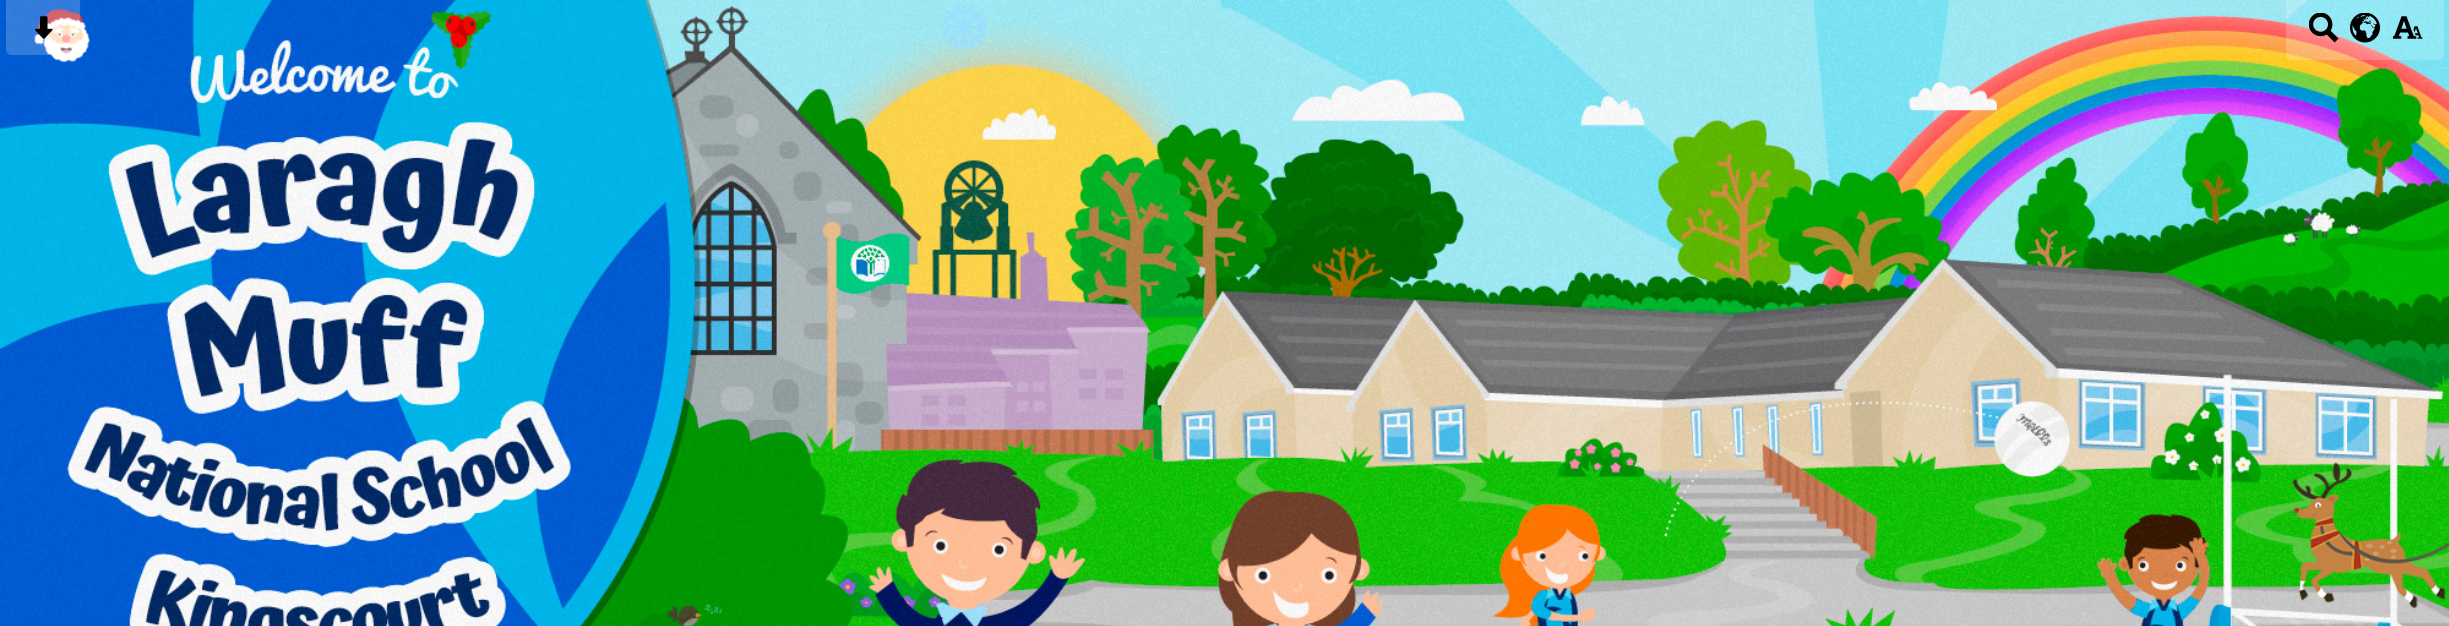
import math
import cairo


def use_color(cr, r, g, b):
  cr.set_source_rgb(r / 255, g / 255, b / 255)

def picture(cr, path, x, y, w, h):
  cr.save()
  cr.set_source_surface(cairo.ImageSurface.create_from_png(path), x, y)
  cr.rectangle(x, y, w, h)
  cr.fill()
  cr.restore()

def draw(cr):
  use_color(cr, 255, 255, 255)
  cr.paint()
  picture(cr, "img_01.png", 0, 0, 2449, 626)
  picture(cr, "img_06.png", 34, 8, 56, 55)
  cr.set_source_rgba(1, 1, 1, 0.2)
  cr.new_path()
  cr.move_to(6, 0)
  cr.line_to(80, 0)
  cr.line_to(80, 49)
  cr.curve_to(80, 52.5, 77.5, 55, 74, 55)
  cr.line_to(12, 55)
  cr.curve_to(8.5, 55, 6, 52.5, 6, 49)
  cr.close_path()
  cr.fill()
  picture(cr, "img_02.png", 35, 16, 18, 23)
  cr.new_path()
  cr.move_to(2286, 0)
  cr.line_to(2444, 0)
  cr.line_to(2444, 54)
  cr.curve_to(2444, 57.5, 2441.5, 60, 2438, 60)
  cr.line_to(2292, 60)
  cr.curve_to(2288.5, 60, 2286, 57.5, 2286, 54)
  cr.close_path()
  cr.fill()
  picture(cr, "img_03.png", 2309, 13, 30, 30)
  picture(cr, "img_04.png", 2350, 13, 30, 30)
  picture(cr, "img_05.png", 2393, 16, 30, 23)
  picture(cr, "img_07.png", 430, 10, 62, 61)
  picture(cr, "img_08.png", 940, 4, 48, 46)
  picture(cr, "img_09.png", 2290, 462, 159, 147)


surface = cairo.ImageSurface(cairo.FORMAT_RGB24, 2449, 626)
cr = cairo.Context(surface)
options = cairo.FontOptions()
options.set_hint_metrics(cairo.HINT_METRICS_OFF)
options.set_hint_style(cairo.HINT_STYLE_NONE)
cr.set_font_options(options)
cr.set_miter_limit(4)
draw(cr)
surface.write_to_png("out.png")
